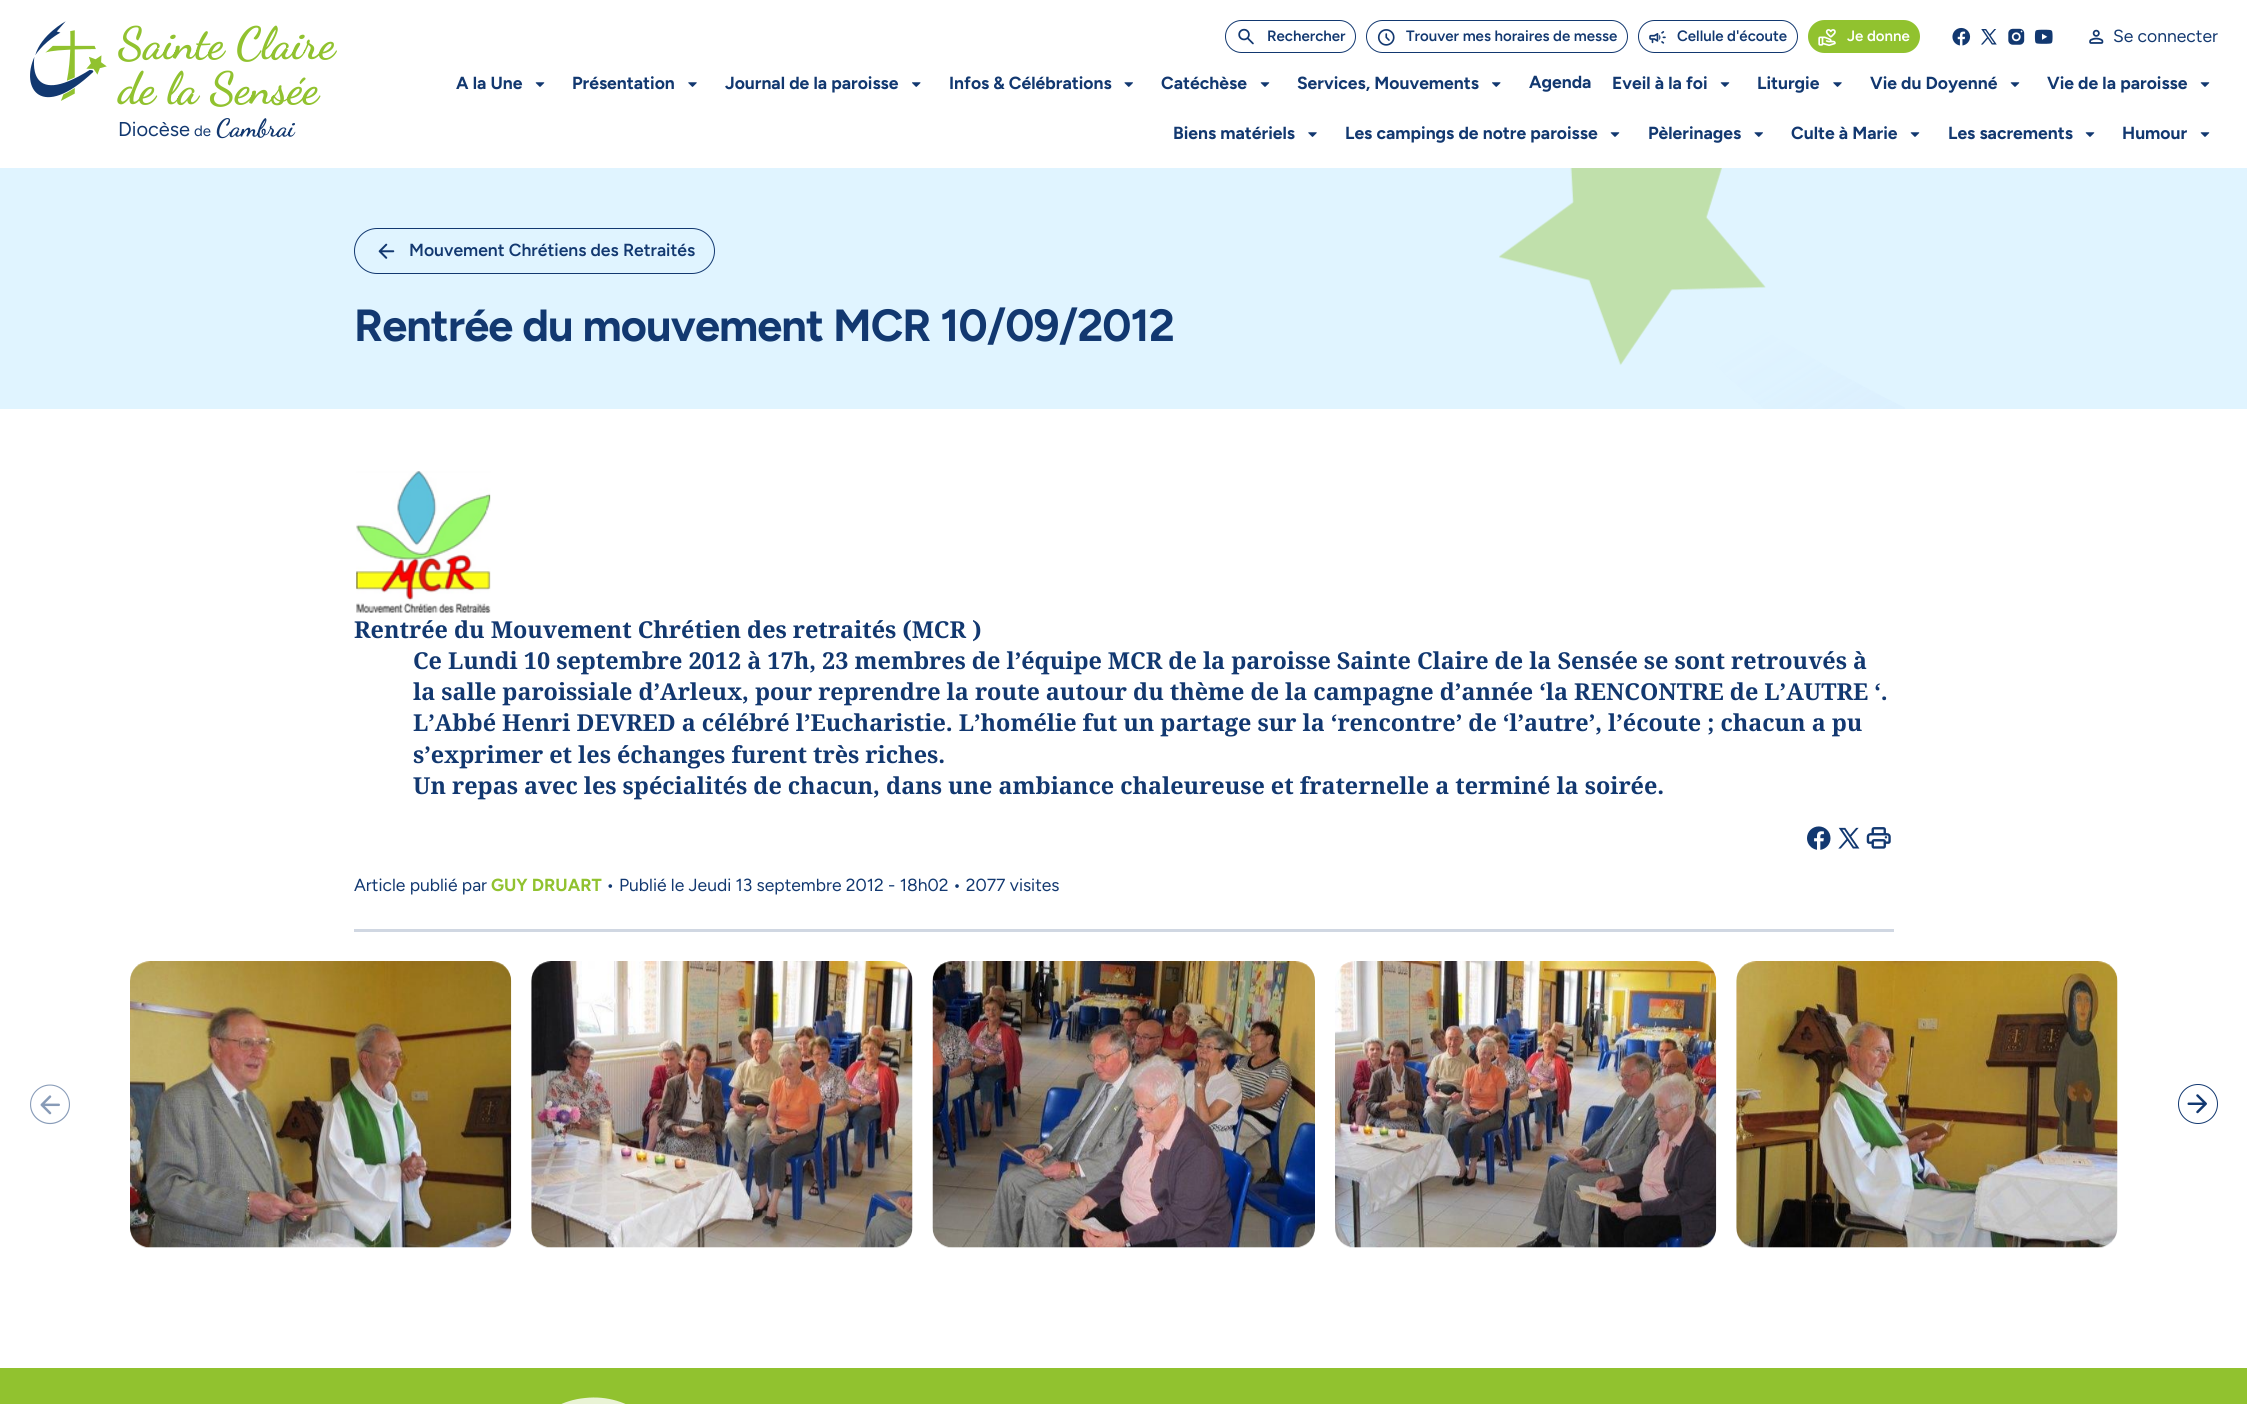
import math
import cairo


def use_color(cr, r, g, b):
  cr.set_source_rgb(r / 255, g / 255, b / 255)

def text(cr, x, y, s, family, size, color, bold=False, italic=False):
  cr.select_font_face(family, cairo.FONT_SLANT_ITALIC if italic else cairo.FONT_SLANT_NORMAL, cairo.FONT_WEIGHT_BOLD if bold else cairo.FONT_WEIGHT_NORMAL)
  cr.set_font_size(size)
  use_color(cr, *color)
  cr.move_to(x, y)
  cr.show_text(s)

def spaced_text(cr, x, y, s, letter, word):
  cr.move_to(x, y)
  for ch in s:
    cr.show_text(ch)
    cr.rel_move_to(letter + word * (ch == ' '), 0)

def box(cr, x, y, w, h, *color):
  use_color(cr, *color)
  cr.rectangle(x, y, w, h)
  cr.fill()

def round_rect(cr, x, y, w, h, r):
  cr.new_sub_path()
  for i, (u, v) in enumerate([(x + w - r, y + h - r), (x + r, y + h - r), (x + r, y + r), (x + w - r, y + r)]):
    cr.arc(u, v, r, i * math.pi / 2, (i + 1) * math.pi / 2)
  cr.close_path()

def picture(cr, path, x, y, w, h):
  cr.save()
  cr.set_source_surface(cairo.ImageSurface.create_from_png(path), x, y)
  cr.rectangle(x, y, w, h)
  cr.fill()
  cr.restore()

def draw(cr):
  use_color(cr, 255, 255, 255)
  cr.paint()
  picture(cr, "img_01.png", 30, 21, 77, 80)
  round_rect(cr, 1225.5, 20.5, 130, 32, 16)
  use_color(cr, 18, 56, 112)
  cr.set_line_width(1)
  cr.stroke()
  picture(cr, "img_02.png", 1238, 28, 16, 17)
  round_rect(cr, 1366.5, 20.5, 261, 32, 16)
  cr.stroke()
  picture(cr, "img_03.png", 1377, 29, 18, 17)
  round_rect(cr, 1638.5, 20.5, 159, 32, 16)
  cr.stroke()
  picture(cr, "img_04.png", 1649, 31, 17, 13)
  use_color(cr, 145, 194, 47)
  round_rect(cr, 1808, 20, 112, 33, 16.5)
  cr.fill()
  picture(cr, "img_05.png", 1818, 29, 18, 17)
  picture(cr, "img_06.png", 1952, 27, 19, 19)
  picture(cr, "img_07.png", 1981, 29, 16, 16)
  picture(cr, "img_08.png", 2008, 28, 17, 17)
  picture(cr, "img_09.png", 2034, 29, 19, 15)
  picture(cr, "img_10.png", 2089, 29, 15, 15)
  picture(cr, "img_11.png", 535, 82, 10, 5)
  picture(cr, "img_12.png", 688, 82, 9, 5)
  picture(cr, "img_13.png", 912, 82, 9, 5)
  picture(cr, "img_14.png", 1124, 82, 9, 5)
  picture(cr, "img_11.png", 1260, 82, 10, 5)
  picture(cr, "img_13.png", 1492, 82, 9, 5)
  picture(cr, "img_11.png", 1720, 82, 10, 5)
  picture(cr, "img_12.png", 1833, 82, 9, 5)
  picture(cr, "img_11.png", 2010, 82, 10, 5)
  picture(cr, "img_11.png", 2200, 82, 10, 5)
  picture(cr, "img_12.png", 1308, 132, 9, 5)
  picture(cr, "img_11.png", 1610, 132, 10, 5)
  picture(cr, "img_14.png", 1754, 132, 9, 5)
  picture(cr, "img_11.png", 1910, 132, 10, 5)
  picture(cr, "img_11.png", 2085, 132, 10, 5)
  picture(cr, "img_11.png", 2200, 132, 10, 5)
  box(cr, 0, 168, 2247, 241, 224, 244, 255)
  round_rect(cr, 354.5, 228.5, 360, 45, 22.5)
  use_color(cr, 18, 56, 112)
  cr.stroke()
  picture(cr, "img_15.png", 378, 243, 17, 16)
  picture(cr, "img_16.png", 1499, 168, 406, 241)
  picture(cr, "img_17.png", 356, 471, 135, 142)
  picture(cr, "img_18.png", 1807, 826, 24, 24)
  picture(cr, "img_19.png", 1838, 827, 22, 22)
  picture(cr, "img_20.png", 1866, 827, 25, 22)
  box(cr, 354, 929, 1540, 3, 208, 215, 226)
  cr.save()
  cr.new_path()
  cr.move_to(50, 1124.5)
  cr.curve_to(39, 1124.5, 30, 1115.5, 30, 1104.5)
  cr.curve_to(30, 1093.5, 39, 1084.5, 50, 1084.5)
  cr.curve_to(61, 1084.5, 70, 1093.5, 70, 1104.5)
  cr.curve_to(70, 1115.5, 61, 1124.5, 50, 1124.5)
  cr.close_path()
  cr.clip()
  cr.new_path()
  cr.move_to(50, 1123.5)
  cr.curve_to(39.5, 1123.5, 30.5, 1115, 30.5, 1104.5)
  cr.curve_to(30.5, 1093.5, 39.5, 1085, 50, 1085)
  cr.curve_to(60.5, 1085, 69.5, 1093.5, 69.5, 1104.5)
  cr.curve_to(69.5, 1115, 60.5, 1123.5, 50, 1123.5)
  cr.close_path()
  use_color(cr, 137, 156, 184)
  cr.set_line_width(1.2)
  cr.stroke()
  cr.restore()
  picture(cr, "img_21.png", 40, 1095, 20, 20)
  picture(cr, "img_22.png", 130, 961, 382, 287)
  picture(cr, "img_23.png", 531, 961, 382, 287)
  picture(cr, "img_24.png", 932, 961, 383, 287)
  picture(cr, "img_25.png", 1335, 961, 382, 287)
  picture(cr, "img_26.png", 1736, 961, 382, 287)
  cr.arc(2198, 1104, 19.5, 0, 2 * math.pi)
  use_color(cr, 18, 56, 112)
  cr.stroke()
  picture(cr, "img_27.png", 2187, 1094, 20, 20)
  box(cr, 0, 1368, 2247, 36, 145, 194, 47)
  use_color(cr, 233, 243, 213)
  cr.new_path()
  cr.move_to(585, 1398)
  cr.curve_to(629, 1393, 669, 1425, 673, 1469)
  cr.curve_to(678, 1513, 646, 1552, 602, 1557)
  cr.curve_to(558, 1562, 519, 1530, 514, 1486)
  cr.curve_to(510, 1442, 541, 1402, 585, 1398)
  cr.close_path()
  cr.fill()
  text(cr, 118, 58, "Sainte Claire", "Dancing Script", 45, (145, 194, 47), bold=True)
  text(cr, 118, 103, "de la Sensée", "Dancing Script", 45, (145, 194, 47), bold=True)
  text(cr, 118, 136, "Diocèse", "Figtree", 20, (18, 56, 112))
  text(cr, 194, 136, "de", "Figtree", 15, (18, 56, 112))
  text(cr, 216, 136, "Cambrai", "Dancing Script", 25, (18, 56, 112), bold=True)
  text(cr, 1267, 41, "Rechercher", "Figtree SemiBold", 15, (18, 56, 112))
  text(cr, 1406, 41, "Trouver mes horaires de messe", "Figtree SemiBold", 15, (18, 56, 112))
  text(cr, 1677, 41, "Cellule d'écoute", "Figtree SemiBold", 15, (18, 56, 112))
  text(cr, 1847, 41, "Je donne", "Figtree SemiBold", 15, (255, 255, 255))
  text(cr, 2113, 42, "Se connecter", "Figtree", 17.5, (18, 56, 112))
  text(cr, 456, 89, "A la Une", "Figtree", 17.5, (18, 56, 112), bold=True)
  text(cr, 572, 89, "Présentation", "Figtree", 17.5, (18, 56, 112), bold=True)
  text(cr, 725, 89, "Journal de la paroisse", "Figtree", 17.5, (18, 56, 112), bold=True)
  text(cr, 949, 89, "Infos & Célébrations", "Figtree", 17.5, (18, 56, 112), bold=True)
  text(cr, 1161, 89, "Catéchèse", "Figtree", 17.5, (18, 56, 112), bold=True)
  text(cr, 1297, 89, "Services, Mouvements", "Figtree", 17.5, (18, 56, 112), bold=True)
  text(cr, 1529, 88, "Agenda", "Figtree", 17.5, (18, 56, 112), bold=True)
  text(cr, 1612, 89, "Eveil à la foi", "Figtree", 17.5, (18, 56, 112), bold=True)
  text(cr, 1757, 89, "Liturgie", "Figtree", 17.5, (18, 56, 112), bold=True)
  text(cr, 1870, 89, "Vie du Doyenné", "Figtree", 17.5, (18, 56, 112), bold=True)
  text(cr, 2047, 89, "Vie de la paroisse", "Figtree", 17.5, (18, 56, 112), bold=True)
  text(cr, 1173, 139, "Biens matériels", "Figtree", 17.5, (18, 56, 112), bold=True)
  text(cr, 1345, 139, "Les campings de notre paroisse", "Figtree", 17.5, (18, 56, 112), bold=True)
  text(cr, 1648, 139, "Pèlerinages", "Figtree", 17.5, (18, 56, 112), bold=True)
  text(cr, 1791, 139, "Culte à Marie", "Figtree", 17.5, (18, 56, 112), bold=True)
  text(cr, 1948, 139, "Les sacrements", "Figtree", 17.5, (18, 56, 112), bold=True)
  text(cr, 2122, 139, "Humour", "Figtree", 17.5, (18, 56, 112), bold=True)
  text(cr, 409, 256, "Mouvement Chrétiens des Retraités", "Figtree SemiBold", 17.5, (18, 56, 112))
  cr.select_font_face("Figtree", cairo.FONT_SLANT_NORMAL, cairo.FONT_WEIGHT_BOLD)
  cr.set_font_size(45)
  spaced_text(cr, 354, 341, "Rentrée du mouvement MCR 10/09/2012", -0.9, 0)
  text(cr, 354, 638, "Rentrée du Mouvement Chrétien des retraités (MCR )", "Noto Serif", 23.33, (18, 56, 112), bold=True)
  text(cr, 413, 669, "Ce Lundi 10 septembre 2012 à 17h, 23 membres de l’équipe MCR de la paroisse Sainte Claire de la Sensée se sont retrouvés à", "Noto Serif", 23.33, (18, 56, 112), bold=True)
  text(cr, 413, 700, "la salle paroissiale d’Arleux, pour reprendre la route autour du thème de la campagne d’année ‘la RENCONTRE de L’AUTRE ‘.", "Noto Serif", 23.33, (18, 56, 112), bold=True)
  text(cr, 413, 731, "L’Abbé Henri DEVRED a célébré l’Eucharistie. L’homélie fut un partage sur la ‘rencontre’ de ‘l’autre’, l’écoute ; chacun a pu", "Noto Serif", 23.33, (18, 56, 112), bold=True)
  text(cr, 413, 763, "s’exprimer et les échanges furent très riches.", "Noto Serif", 23.33, (18, 56, 112), bold=True)
  text(cr, 413, 794, "Un repas avec les spécialités de chacun, dans une ambiance chaleureuse et fraternelle a terminé la soirée.", "Noto Serif", 23.33, (18, 56, 112), bold=True)
  text(cr, 354, 891, "Article publié par", "Figtree", 17.5, (18, 56, 112))
  text(cr, 491, 891, "GUY DRUART", "Figtree", 17.5, (145, 194, 47), bold=True)
  text(cr, 606, 891, "• Publié le Jeudi 13 septembre 2012 - 18h02 • 2077 visites", "Figtree", 17.5, (18, 56, 112))


surface = cairo.ImageSurface(cairo.FORMAT_RGB24, 2247, 1404)
cr = cairo.Context(surface)
options = cairo.FontOptions()
options.set_hint_metrics(cairo.HINT_METRICS_OFF)
options.set_hint_style(cairo.HINT_STYLE_NONE)
cr.set_font_options(options)
cr.set_miter_limit(4)
draw(cr)
surface.write_to_png("out.png")
